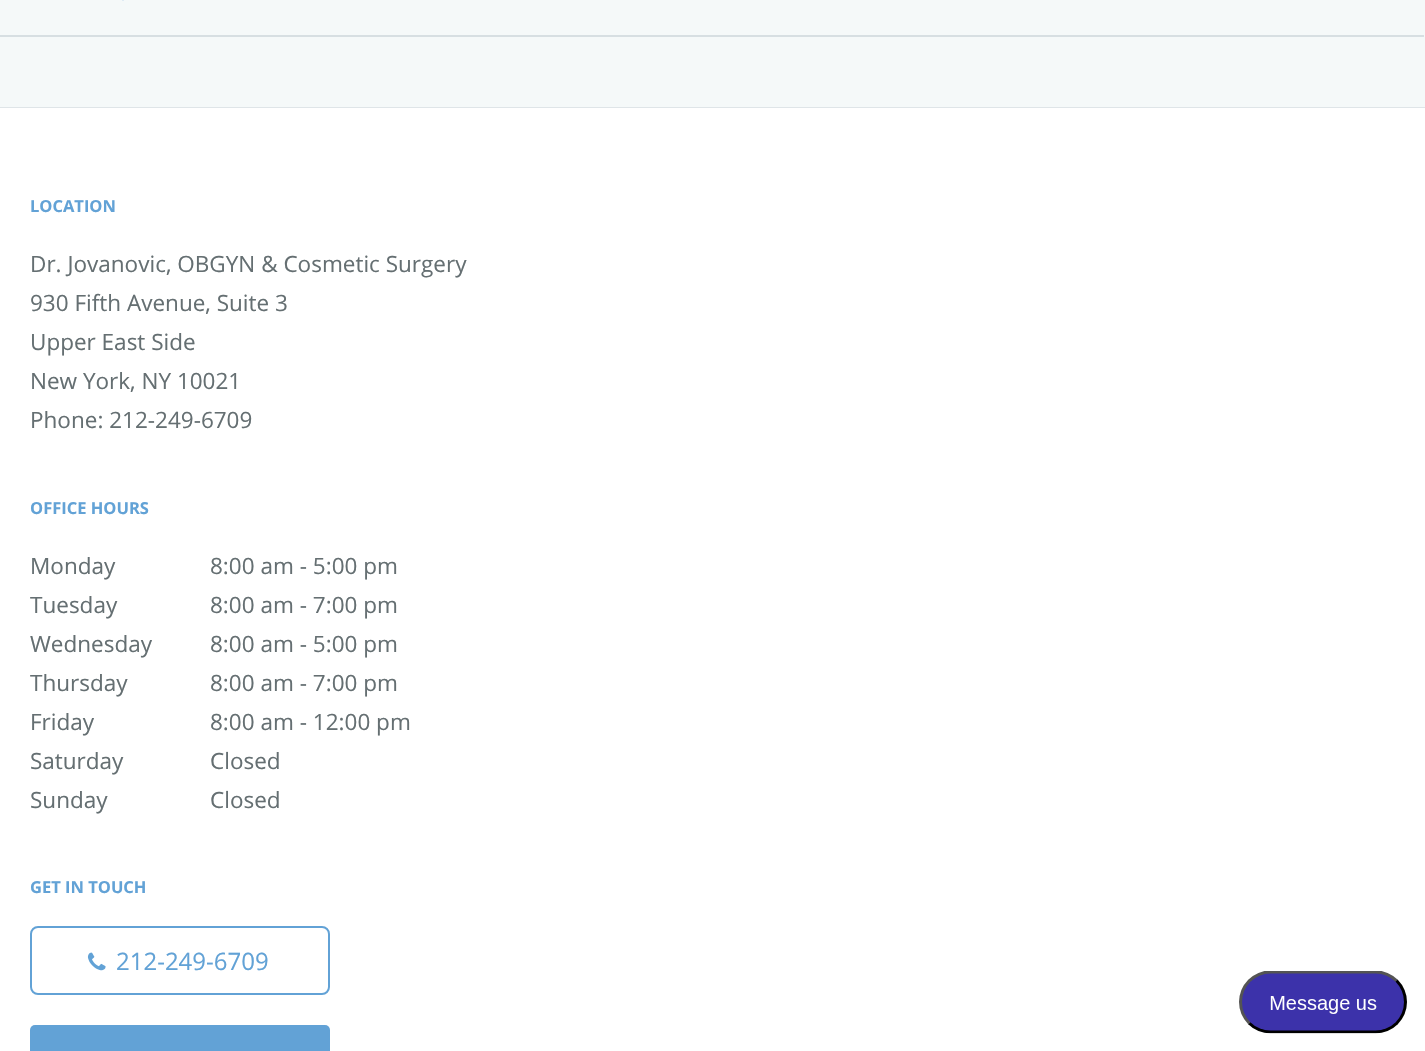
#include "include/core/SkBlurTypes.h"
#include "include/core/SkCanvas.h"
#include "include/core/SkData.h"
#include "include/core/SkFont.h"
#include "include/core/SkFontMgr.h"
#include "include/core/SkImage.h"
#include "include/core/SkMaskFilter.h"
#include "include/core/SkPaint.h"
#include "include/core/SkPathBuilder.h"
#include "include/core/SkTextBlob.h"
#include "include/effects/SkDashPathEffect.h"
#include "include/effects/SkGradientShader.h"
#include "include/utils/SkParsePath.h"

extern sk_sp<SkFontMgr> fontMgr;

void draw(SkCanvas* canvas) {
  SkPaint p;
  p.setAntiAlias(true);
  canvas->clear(SkColorSetRGB(245, 249, 249));
  p.setColor(SkColorSetRGB(223, 229, 232));
  canvas->drawRect(SkRect::MakeLTRB(0, 107, 1425, 108), p);
  p.setColor(SkColorSetRGB(215, 223, 226));
  canvas->drawRect(SkRect::MakeLTRB(0, 35, 1424, 37), p);
  p.setColor(SkColorSetRGB(223, 235, 244));
  canvas->drawRect(SkRect::MakeLTRB(122, 0, 124, 1), p);
  p.setColor(SK_ColorWHITE);
  canvas->drawRect(SkRect::MakeLTRB(0, 108, 1425, 1051), p);
  p.setStyle(SkPaint::kStroke_Style);
  p.setStrokeWidth(2);
  p.setColor(SkColorSetRGB(98, 162, 214));
  canvas->drawRoundRect(SkRect::MakeLTRB(31, 927, 329, 994), 7, 7, p);
  canvas->drawImageRect(SkImages::DeferredFromEncodedData(SkData::MakeFromFileName("images/1.png")), SkRect::MakeLTRB(87, 952, 106, 971), SkSamplingOptions());
  p.setStyle(SkPaint::kFill_Style);
  canvas->drawRoundRect(SkRect::MakeLTRB(30, 1025, 330, 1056), 5, 5, p);
  canvas->drawImageRect(SkImages::DeferredFromEncodedData(SkData::MakeFromFileName("images/2.png")), SkRect::MakeLTRB(1239, 971, 1407, 1034), SkSamplingOptions());
  SkFont font1(fontMgr->matchFamilyStyle("Open Sans", SkFontStyle::Bold()), 16.5f);
  font1.setSubpixel(true);
  canvas->drawString("LOCATION", 30, 212, font1, p);
  SkFont font2(fontMgr->matchFamilyStyle("Open Sans", SkFontStyle::Normal()), 22.5f);
  font2.setSubpixel(true);
  p.setColor(SkColorSetRGB(101, 111, 114));
  canvas->drawString("Dr. Jovanovic, OBGYN & Cosmetic Surgery", 30, 272, font2, p);
  canvas->drawString("930 Fifth Avenue, Suite 3", 30, 311, font2, p);
  canvas->drawString("Upper East Side", 30, 350, font2, p);
  canvas->drawString("New York, NY 10021", 30, 389, font2, p);
  canvas->drawString("Phone: 212-249-6709", 30, 428, font2, p);
  p.setColor(SkColorSetRGB(98, 162, 214));
  canvas->drawString("OFFICE HOURS", 30, 514, font1, p);
  p.setColor(SkColorSetRGB(101, 111, 114));
  canvas->drawString("Monday", 30, 574, font2, p);
  canvas->drawString("8:00 am - 5:00 pm", 210, 574, font2, p);
  canvas->drawString("Tuesday", 30, 613, font2, p);
  canvas->drawString("8:00 am - 7:00 pm", 210, 613, font2, p);
  canvas->drawString("Wednesday", 30, 652, font2, p);
  canvas->drawString("8:00 am - 5:00 pm", 210, 652, font2, p);
  canvas->drawString("Thursday", 30, 691, font2, p);
  canvas->drawString("8:00 am - 7:00 pm", 210, 691, font2, p);
  canvas->drawString("Friday", 30, 730, font2, p);
  canvas->drawString("8:00 am - 12:00 pm", 210, 730, font2, p);
  canvas->drawString("Saturday", 30, 769, font2, p);
  canvas->drawString("Closed", 210, 769, font2, p);
  canvas->drawString("Sunday", 30, 808, font2, p);
  canvas->drawString("Closed", 210, 808, font2, p);
  p.setColor(SkColorSetRGB(98, 162, 214));
  canvas->drawString("GET IN TOUCH", 30, 893, font1, p);
  SkFont font3(fontMgr->matchFamilyStyle("Open Sans", SkFontStyle::Normal()), 24);
  font3.setSubpixel(true);
  canvas->drawString("212-249-6709", 116, 970, font3, p);
}
